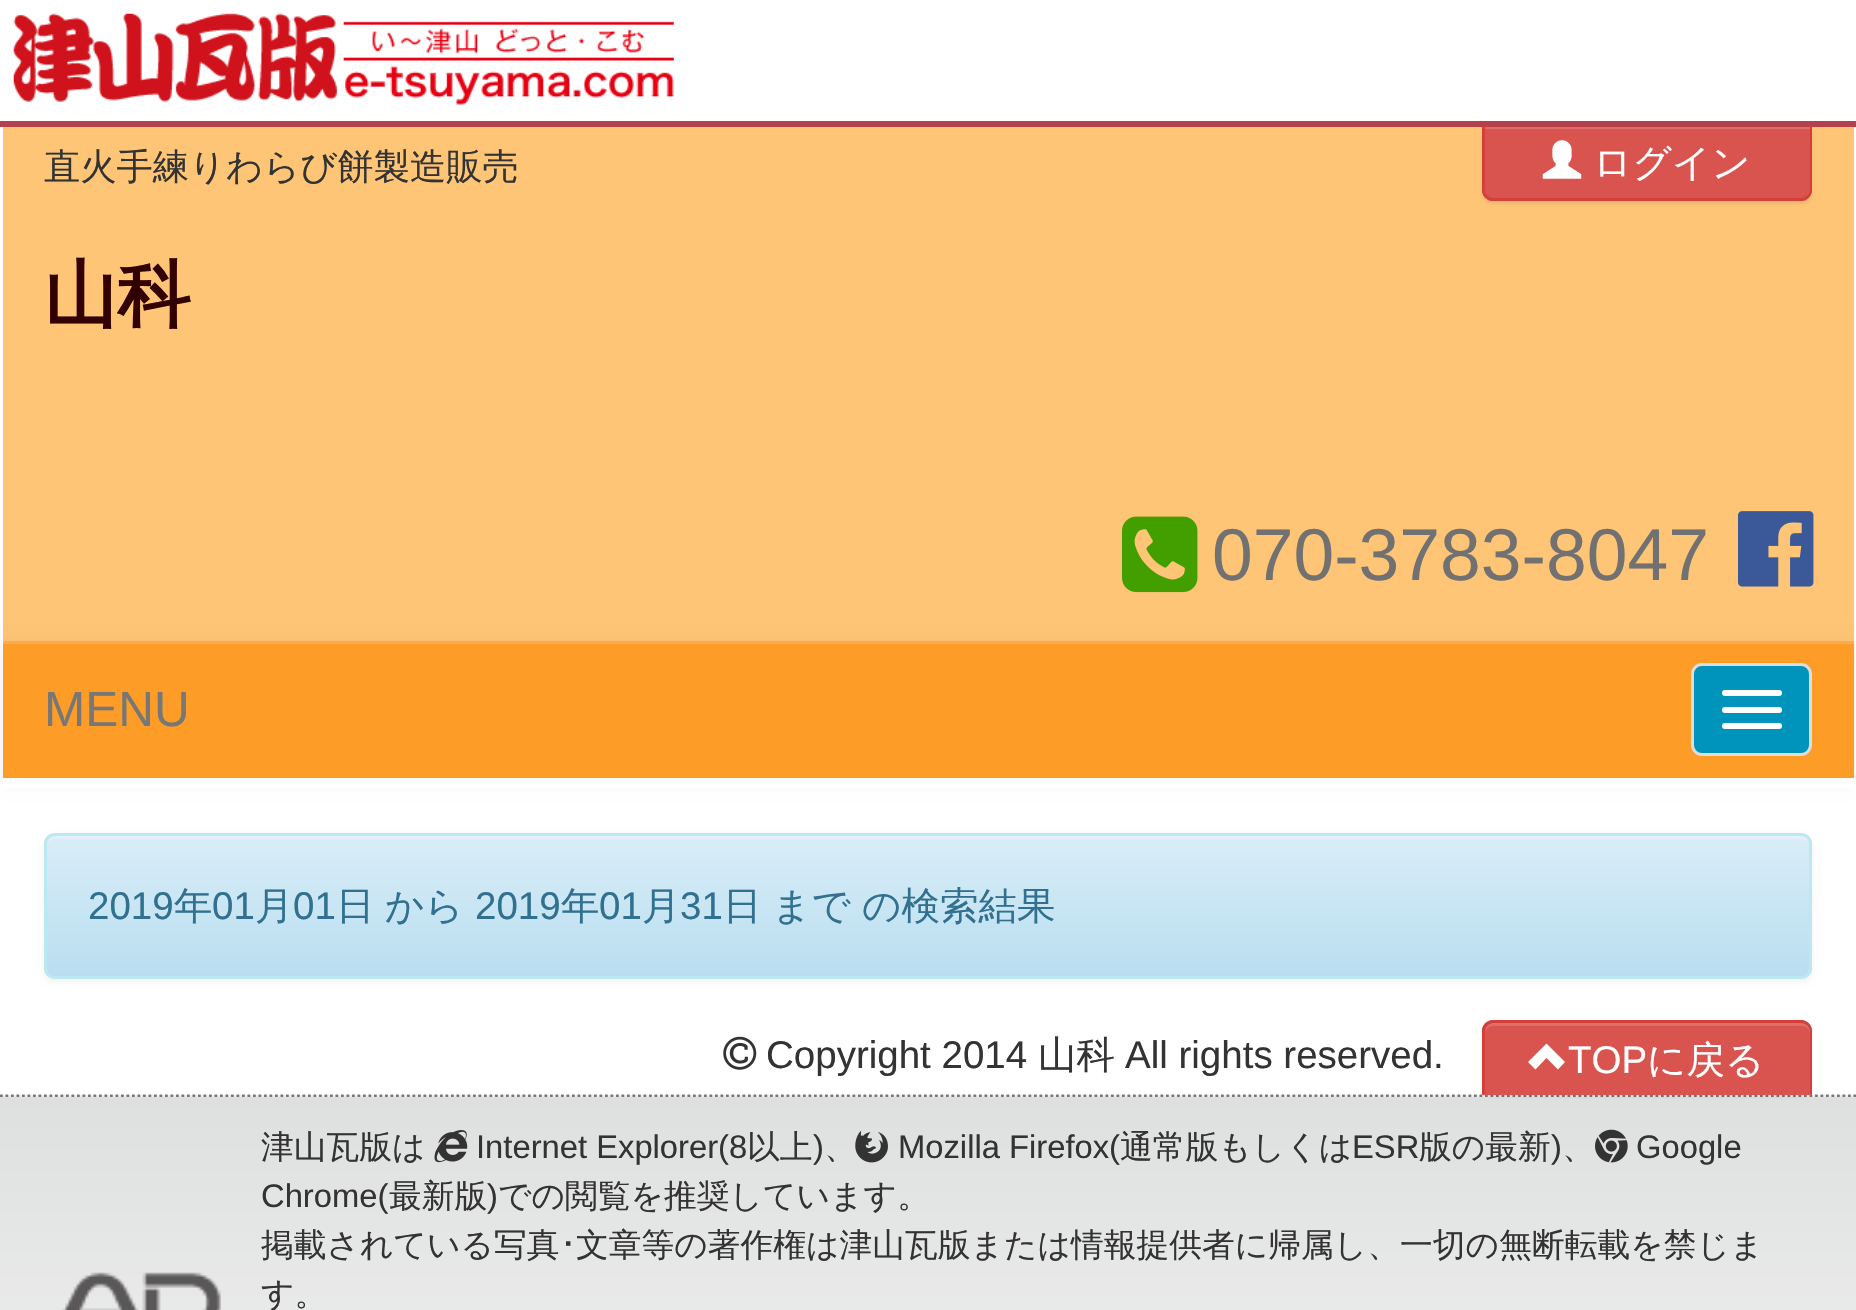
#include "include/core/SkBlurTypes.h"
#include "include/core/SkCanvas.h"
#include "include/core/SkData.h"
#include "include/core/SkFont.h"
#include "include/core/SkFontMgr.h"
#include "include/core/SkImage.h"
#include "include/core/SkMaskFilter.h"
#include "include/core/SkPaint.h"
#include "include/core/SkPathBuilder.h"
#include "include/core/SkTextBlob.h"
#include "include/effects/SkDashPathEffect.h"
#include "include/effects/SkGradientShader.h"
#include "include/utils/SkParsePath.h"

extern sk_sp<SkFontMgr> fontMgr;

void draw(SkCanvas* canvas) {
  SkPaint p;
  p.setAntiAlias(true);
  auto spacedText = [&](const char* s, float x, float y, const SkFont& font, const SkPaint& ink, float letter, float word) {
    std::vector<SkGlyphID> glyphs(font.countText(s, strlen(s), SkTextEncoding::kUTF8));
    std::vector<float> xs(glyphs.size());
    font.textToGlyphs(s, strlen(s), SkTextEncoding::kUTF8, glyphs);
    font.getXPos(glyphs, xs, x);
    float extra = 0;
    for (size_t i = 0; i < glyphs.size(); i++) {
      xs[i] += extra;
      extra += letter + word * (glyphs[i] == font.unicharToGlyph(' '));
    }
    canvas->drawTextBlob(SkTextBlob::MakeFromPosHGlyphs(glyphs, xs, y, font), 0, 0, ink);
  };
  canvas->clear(SK_ColorWHITE);
  p.setColor(SkColorSetRGB(181, 64, 75));
  canvas->drawRect(SkRect::MakeLTRB(0, 121, 1856, 127), p);
  canvas->drawImageRect(SkImages::DeferredFromEncodedData(SkData::MakeFromFileName("images/1.png")), SkRect::MakeLTRB(13, 13, 674, 105), SkSamplingOptions());
  p.setColor(SkColorSetRGB(254, 197, 118));
  canvas->drawRect(SkRect::MakeLTRB(3, 127, 1854, 641), p);
  p.setColor(SkColorSetARGB(18, 0, 0, 0));
  p.setMaskFilter(SkMaskFilter::MakeBlur(kNormal_SkBlurStyle, 1.5f));
  canvas->drawRoundRect(SkRect::MakeLTRB(1482, 129, 1812, 204), 11, 11, p);
  p.setMaskFilter(nullptr);
  p.setColor(SkColorSetRGB(217, 83, 79));
  canvas->drawPath(SkPathBuilder().moveTo(1482, 127).lineTo(1812, 127).lineTo(1812, 190).cubicTo(1812, 196, 1807, 201, 1801, 201).lineTo(1493, 201).cubicTo(1487, 201, 1482, 196, 1482, 190).close().detach(), p);
  p.setColor(SkColorSetRGB(223, 109, 105));
  canvas->drawRect(SkRect::MakeLTRB(1485, 127, 1810, 129), p);
  p.setColor(SkColorSetRGB(212, 63, 58));
  canvas->drawPath(SkPathBuilder(SkPathFillType::kEvenOdd).moveTo(1482, 126).lineTo(1812, 126).lineTo(1812, 190).cubicTo(1812, 196, 1807, 201, 1801, 201).lineTo(1493, 201).cubicTo(1487, 201, 1482, 196, 1482, 190).close().moveTo(1485, 126).lineTo(1810, 126).lineTo(1810, 190).cubicTo(1810, 194, 1806, 198, 1801, 198).lineTo(1493, 198).cubicTo(1489, 198, 1485, 194, 1485, 190).close().detach(), p);
  canvas->drawImageRect(SkImages::DeferredFromEncodedData(SkData::MakeFromFileName("images/2.png")), SkRect::MakeLTRB(1542, 140, 1582, 179), SkSamplingOptions());
  canvas->drawImageRect(SkImages::DeferredFromEncodedData(SkData::MakeFromFileName("images/3.png")), SkRect::MakeLTRB(1122, 516, 1198, 593), SkSamplingOptions());
  canvas->drawImageRect(SkImages::DeferredFromEncodedData(SkData::MakeFromFileName("images/4.png")), SkRect::MakeLTRB(1738, 511, 1814, 587), SkSamplingOptions());
  p.setColor(SkColorSetARGB(18, 0, 0, 0));
  p.setMaskFilter(SkMaskFilter::MakeBlur(kNormal_SkBlurStyle, 7));
  canvas->drawRect(SkRect::MakeLTRB(3, 644, 1854, 781), p);
  p.setMaskFilter(nullptr);
  p.setColor(SkColorSetRGB(253, 156, 38));
  canvas->drawRect(SkRect::MakeLTRB(3, 644, 1854, 778), p);
  p.setColor(SkColorSetRGB(253, 171, 71));
  canvas->drawRect(SkRect::MakeLTRB(3, 641, 1854, 644), p);
  p.setColor(SkColorSetRGB(0, 147, 187));
  canvas->drawRoundRect(SkRect::MakeLTRB(1692.5f, 664.5f, 1810.5f, 754.5f), 9.5f, 9.5f, p);
  p.setStyle(SkPaint::kStroke_Style);
  p.setStrokeWidth(3);
  p.setColor(SkColorSetRGB(221, 221, 221));
  canvas->drawRoundRect(SkRect::MakeLTRB(1692.5f, 664.5f, 1810.5f, 754.5f), 9.5f, 9.5f, p);
  p.setStyle(SkPaint::kFill_Style);
  p.setColor(SK_ColorWHITE);
  canvas->drawRoundRect(SkRect::MakeLTRB(1722, 690, 1782, 696), 3, 3, p);
  canvas->drawRoundRect(SkRect::MakeLTRB(1722, 707, 1782, 713), 3, 3, p);
  canvas->drawRoundRect(SkRect::MakeLTRB(1722, 723, 1782, 729), 3, 3, p);
  canvas->drawRect(SkRect::MakeLTRB(3, 778, 1854, 788), p);
  canvas->drawRect(SkRect::MakeLTRB(1854, 778, 1856, 785), p);
  canvas->drawRect(SkRect::MakeLTRB(0, 778, 3, 785), p);
  p.setColor(SkColorSetARGB(13, 0, 0, 0));
  p.setMaskFilter(SkMaskFilter::MakeBlur(kNormal_SkBlurStyle, 3));
  canvas->drawRoundRect(SkRect::MakeLTRB(44, 836, 1812, 982), 11, 11, p);
  p.setMaskFilter(nullptr);
  canvas->save();
  canvas->clipPath(SkPathBuilder().moveTo(55, 833).lineTo(1801, 833).cubicTo(1807, 833, 1812, 838, 1812, 844).lineTo(1812, 968).cubicTo(1812, 974, 1807, 979, 1801, 979).lineTo(55, 979).cubicTo(49, 979, 44, 974, 44, 968).lineTo(44, 844).cubicTo(44, 838, 49, 833, 55, 833).close().detach(), true);
  {
    const SkColor colors[] = {SkColorSetRGB(217, 237, 247), SkColorSetRGB(185, 222, 240)};
    const float stops[] = {0, 1};
    const SkPoint ends[] = {{928, 836}, {928, 976}};
    p.setShader(SkGradientShader::MakeLinear(ends, colors, stops, 2, SkTileMode::kClamp));
    p.setAlpha(255);
  }
  canvas->drawRect(SkRect::MakeLTRB(44, 836, 1812, 976), p);
  canvas->restore();
  p.setShader(nullptr);
  p.setColor(SkColorSetRGB(226, 241, 249));
  canvas->drawPath(SkPathBuilder().moveTo(55, 839).lineTo(1801, 839).cubicTo(1806, 839, 1810, 842, 1810, 847).lineTo(1810, 844).cubicTo(1810, 840, 1806, 836, 1802, 836).lineTo(55, 836).cubicTo(51, 836, 47, 840, 47, 844).lineTo(47, 847).cubicTo(47, 842, 50, 839, 55, 839).close().detach(), p);
  p.setStyle(SkPaint::kStroke_Style);
  p.setColor(SkColorSetRGB(188, 232, 241));
  canvas->drawRoundRect(SkRect::MakeLTRB(45.5f, 834.5f, 1810.5f, 977.5f), 9.5f, 9.5f, p);
  canvas->drawImageRect(SkImages::DeferredFromEncodedData(SkData::MakeFromFileName("images/5.png")), SkRect::MakeLTRB(723, 1036, 757, 1070), SkSamplingOptions());
  p.setStyle(SkPaint::kFill_Style);
  p.setColor(SkColorSetRGB(238, 238, 238));
  canvas->drawRect(SkRect::MakeLTRB(2, 1095, 1854, 1097), p);
  p.setStyle(SkPaint::kStroke_Style);
  p.setStrokeWidth(2.8f);
  p.setColor(SkColorSetRGB(119, 119, 119));
  p.setPathEffect(SkDashPathEffect::Make({{2.75f, 2.75f}}, 0));
  canvas->drawPath(SkPathBuilder().moveTo(0, 1096).lineTo(1856, 1096).detach(), p);
  p.setPathEffect(nullptr);
  p.setStyle(SkPaint::kFill_Style);
  {
    const SkColor colors[] = {SkColorSetRGB(222, 223, 223), SkColorSetRGB(238, 238, 239)};
    const float stops[] = {0, 0.7f};
    const SkPoint ends[] = {{928, 1097}, {928, 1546}};
    p.setShader(SkGradientShader::MakeLinear(ends, colors, stops, 2, SkTileMode::kClamp));
    p.setAlpha(255);
  }
  canvas->drawRect(SkRect::MakeLTRB(0, 1097, 1856, 1310), p);
  p.setShader(nullptr);
  p.setColor(SkColorSetARGB(18, 0, 0, 0));
  p.setMaskFilter(SkMaskFilter::MakeBlur(kNormal_SkBlurStyle, 1.5f));
  canvas->drawRoundRect(SkRect::MakeLTRB(1482, 1023, 1812, 1097), 11, 11, p);
  p.setMaskFilter(nullptr);
  p.setColor(SkColorSetRGB(217, 83, 79));
  canvas->drawPath(SkPathBuilder().moveTo(1493, 1020).lineTo(1801, 1020).cubicTo(1807, 1020, 1812, 1025, 1812, 1031).lineTo(1812, 1095).lineTo(1482, 1095).lineTo(1482, 1031).cubicTo(1482, 1025, 1487, 1020, 1493, 1020).close().detach(), p);
  p.setColor(SkColorSetRGB(223, 109, 105));
  canvas->drawPath(SkPathBuilder().moveTo(1493, 1026).lineTo(1801, 1026).cubicTo(1806, 1026, 1810, 1029, 1810, 1034).lineTo(1810, 1031).cubicTo(1810, 1027, 1806, 1023, 1802, 1023).lineTo(1493, 1023).cubicTo(1489, 1023, 1485, 1027, 1485, 1031).lineTo(1485, 1034).cubicTo(1485, 1029, 1489, 1026, 1493, 1026).close().detach(), p);
  p.setColor(SkColorSetRGB(212, 63, 58));
  canvas->drawPath(SkPathBuilder(SkPathFillType::kEvenOdd).moveTo(1493, 1020).lineTo(1801, 1020).cubicTo(1807, 1020, 1812, 1025, 1812, 1031).lineTo(1812, 1094).lineTo(1482, 1094).lineTo(1482, 1031).cubicTo(1482, 1025, 1487, 1020, 1493, 1020).close().moveTo(1493, 1023).lineTo(1801, 1023).cubicTo(1806, 1023, 1810, 1027, 1810, 1031).lineTo(1810, 1094).lineTo(1485, 1094).lineTo(1485, 1031).cubicTo(1485, 1027, 1489, 1023, 1493, 1023).close().detach(), p);
  p.setColor(SK_ColorWHITE);
  canvas->drawPath(SkPathBuilder().moveTo(1558, 1069.5f).lineTo(1565, 1062).lineTo(1546.5f, 1043.5f).lineTo(1528, 1062).lineTo(1535.5f, 1069.5f).lineTo(1546.5f, 1058).close().detach(), p);
  canvas->drawImageRect(SkImages::DeferredFromEncodedData(SkData::MakeFromFileName("images/6.png")), SkRect::MakeLTRB(62, 1272, 221, 1310), SkSamplingOptions());
  canvas->drawImageRect(SkImages::DeferredFromEncodedData(SkData::MakeFromFileName("images/7.png")), SkRect::MakeLTRB(434, 1130, 468, 1163), SkSamplingOptions());
  canvas->drawImageRect(SkImages::DeferredFromEncodedData(SkData::MakeFromFileName("images/8.png")), SkRect::MakeLTRB(855, 1130, 888, 1163), SkSamplingOptions());
  canvas->drawImageRect(SkImages::DeferredFromEncodedData(SkData::MakeFromFileName("images/9.png")), SkRect::MakeLTRB(1595, 1129, 1628, 1163), SkSamplingOptions());
  SkFont font1(fontMgr->matchFamilyStyle("WenQuanYi Zen Hei", SkFontStyle(500, SkFontStyle::kNormal_Width, SkFontStyle::kUpright_Slant)), 36.25f);
  font1.setSubpixel(true);
  p.setColor(SkColorSetRGB(51, 51, 51));
  canvas->drawString("直火手練りわらび餅製造販売", 44, 179, font1, p);
  SkFont font2(fontMgr->matchFamilyStyle("WenQuanYi Zen Hei", SkFontStyle(500, SkFontStyle::kNormal_Width, SkFontStyle::kUpright_Slant)), 38.5f);
  font2.setSubpixel(true);
  p.setColor(SK_ColorWHITE);
  canvas->drawString("ログイン", 1593, 176, font2, p);
  SkFont font3(fontMgr->matchFamilyStyle("WenQuanYi Zen Hei", SkFontStyle::Bold()), 73.25f);
  font3.setSubpixel(true);
  p.setColor(SkColorSetRGB(51, 0, 0));
  canvas->drawString("山科", 44, 320, font3, p);
  SkFont font4(fontMgr->matchFamilyStyle("Liberation Sans", SkFontStyle::Normal()), 73.25f);
  font4.setSubpixel(true);
  p.setColor(SkColorSetRGB(114, 113, 113));
  canvas->drawString("070-3783-8047", 1212, 580, font4, p);
  SkFont font5(fontMgr->matchFamilyStyle("Liberation Sans", SkFontStyle::Normal()), 49.5f);
  font5.setSubpixel(true);
  p.setColor(SkColorSetRGB(119, 119, 119));
  canvas->drawString("MENU", 44, 726, font5, p);
  SkFont font6(fontMgr->matchFamilyStyle("Liberation Sans", SkFontStyle::Normal()), 38.5f);
  font6.setSubpixel(true);
  p.setColor(SkColorSetRGB(49, 112, 143));
  canvas->drawString("2019", 88, 919, font6, p);
  canvas->drawString("年", 174, 919, font2, p);
  canvas->drawString("01", 212, 919, font6, p);
  canvas->drawString("月", 255, 919, font2, p);
  canvas->drawString("01", 293, 919, font6, p);
  spacedText("日 から", 336, 919, font2, p, 0, -1);
  canvas->drawString("2019", 475, 919, font6, p);
  canvas->drawString("年", 561, 919, font2, p);
  canvas->drawString("01", 599, 919, font6, p);
  canvas->drawString("月", 642, 919, font2, p);
  canvas->drawString("31", 680, 919, font6, p);
  spacedText("日 まで", 723, 919, font2, p, 0, -1);
  canvas->drawString("の検索結果", 862, 919, font2, p);
  p.setColor(SkColorSetRGB(51, 51, 51));
  canvas->drawString("Copyright 2014", 766, 1068, font6, p);
  canvas->drawString("山科", 1038, 1068, font2, p);
  canvas->drawString("All rights reserved.", 1125, 1068, font6, p);
  p.setColor(SK_ColorWHITE);
  canvas->drawString("TOP", 1568, 1073, font6, p);
  canvas->drawString("に戻る", 1647, 1073, font2, p);
  SkFont font7(fontMgr->matchFamilyStyle("WenQuanYi Zen Hei", SkFontStyle(500, SkFontStyle::kNormal_Width, SkFontStyle::kUpright_Slant)), 32.75f);
  font7.setSubpixel(true);
  p.setColor(SkColorSetRGB(51, 51, 51));
  canvas->drawString("津山瓦版は", 261, 1158, font7, p);
  SkFont font8(fontMgr->matchFamilyStyle("Liberation Sans", SkFontStyle::Normal()), 32.75f);
  font8.setSubpixel(true);
  canvas->drawString("Internet Explorer(8", 476, 1158, font8, p);
  canvas->drawString("以上", 747, 1158, font7, p);
  canvas->drawString(")", 813, 1158, font8, p);
  canvas->drawString("、", 824, 1158, font7, p);
  canvas->drawString("Mozilla Firefox(", 898, 1158, font8, p);
  canvas->drawString("通常版もしくは", 1120, 1158, font7, p);
  canvas->drawString("ESR", 1352, 1158, font8, p);
  canvas->drawString("版の最新", 1419, 1158, font7, p);
  canvas->drawString(")", 1551, 1158, font8, p);
  canvas->drawString("、", 1562, 1158, font7, p);
  canvas->drawString("Google", 1636, 1158, font8, p);
  canvas->drawString("Chrome(", 261, 1207, font8, p);
  canvas->drawString("最新版", 389, 1207, font7, p);
  canvas->drawString(")", 487, 1207, font8, p);
  canvas->drawString("での閲覧を推奨しています。", 498, 1207, font7, p);
  canvas->drawString("掲載されている写真", 261, 1256, font7, p);
  SkFont font9(fontMgr->matchFamilyStyle("IPAPGothic", SkFontStyle::Normal()), 32.75f);
  font9.setSubpixel(true);
  canvas->drawString("･", 560, 1256, font9, p);
  canvas->drawString("文章等の著作権は津山瓦版または情報提供者に帰属し、一切の無断転載を禁じま", 576, 1256, font7, p);
  canvas->drawString("す。", 261, 1305, font7, p);
}
